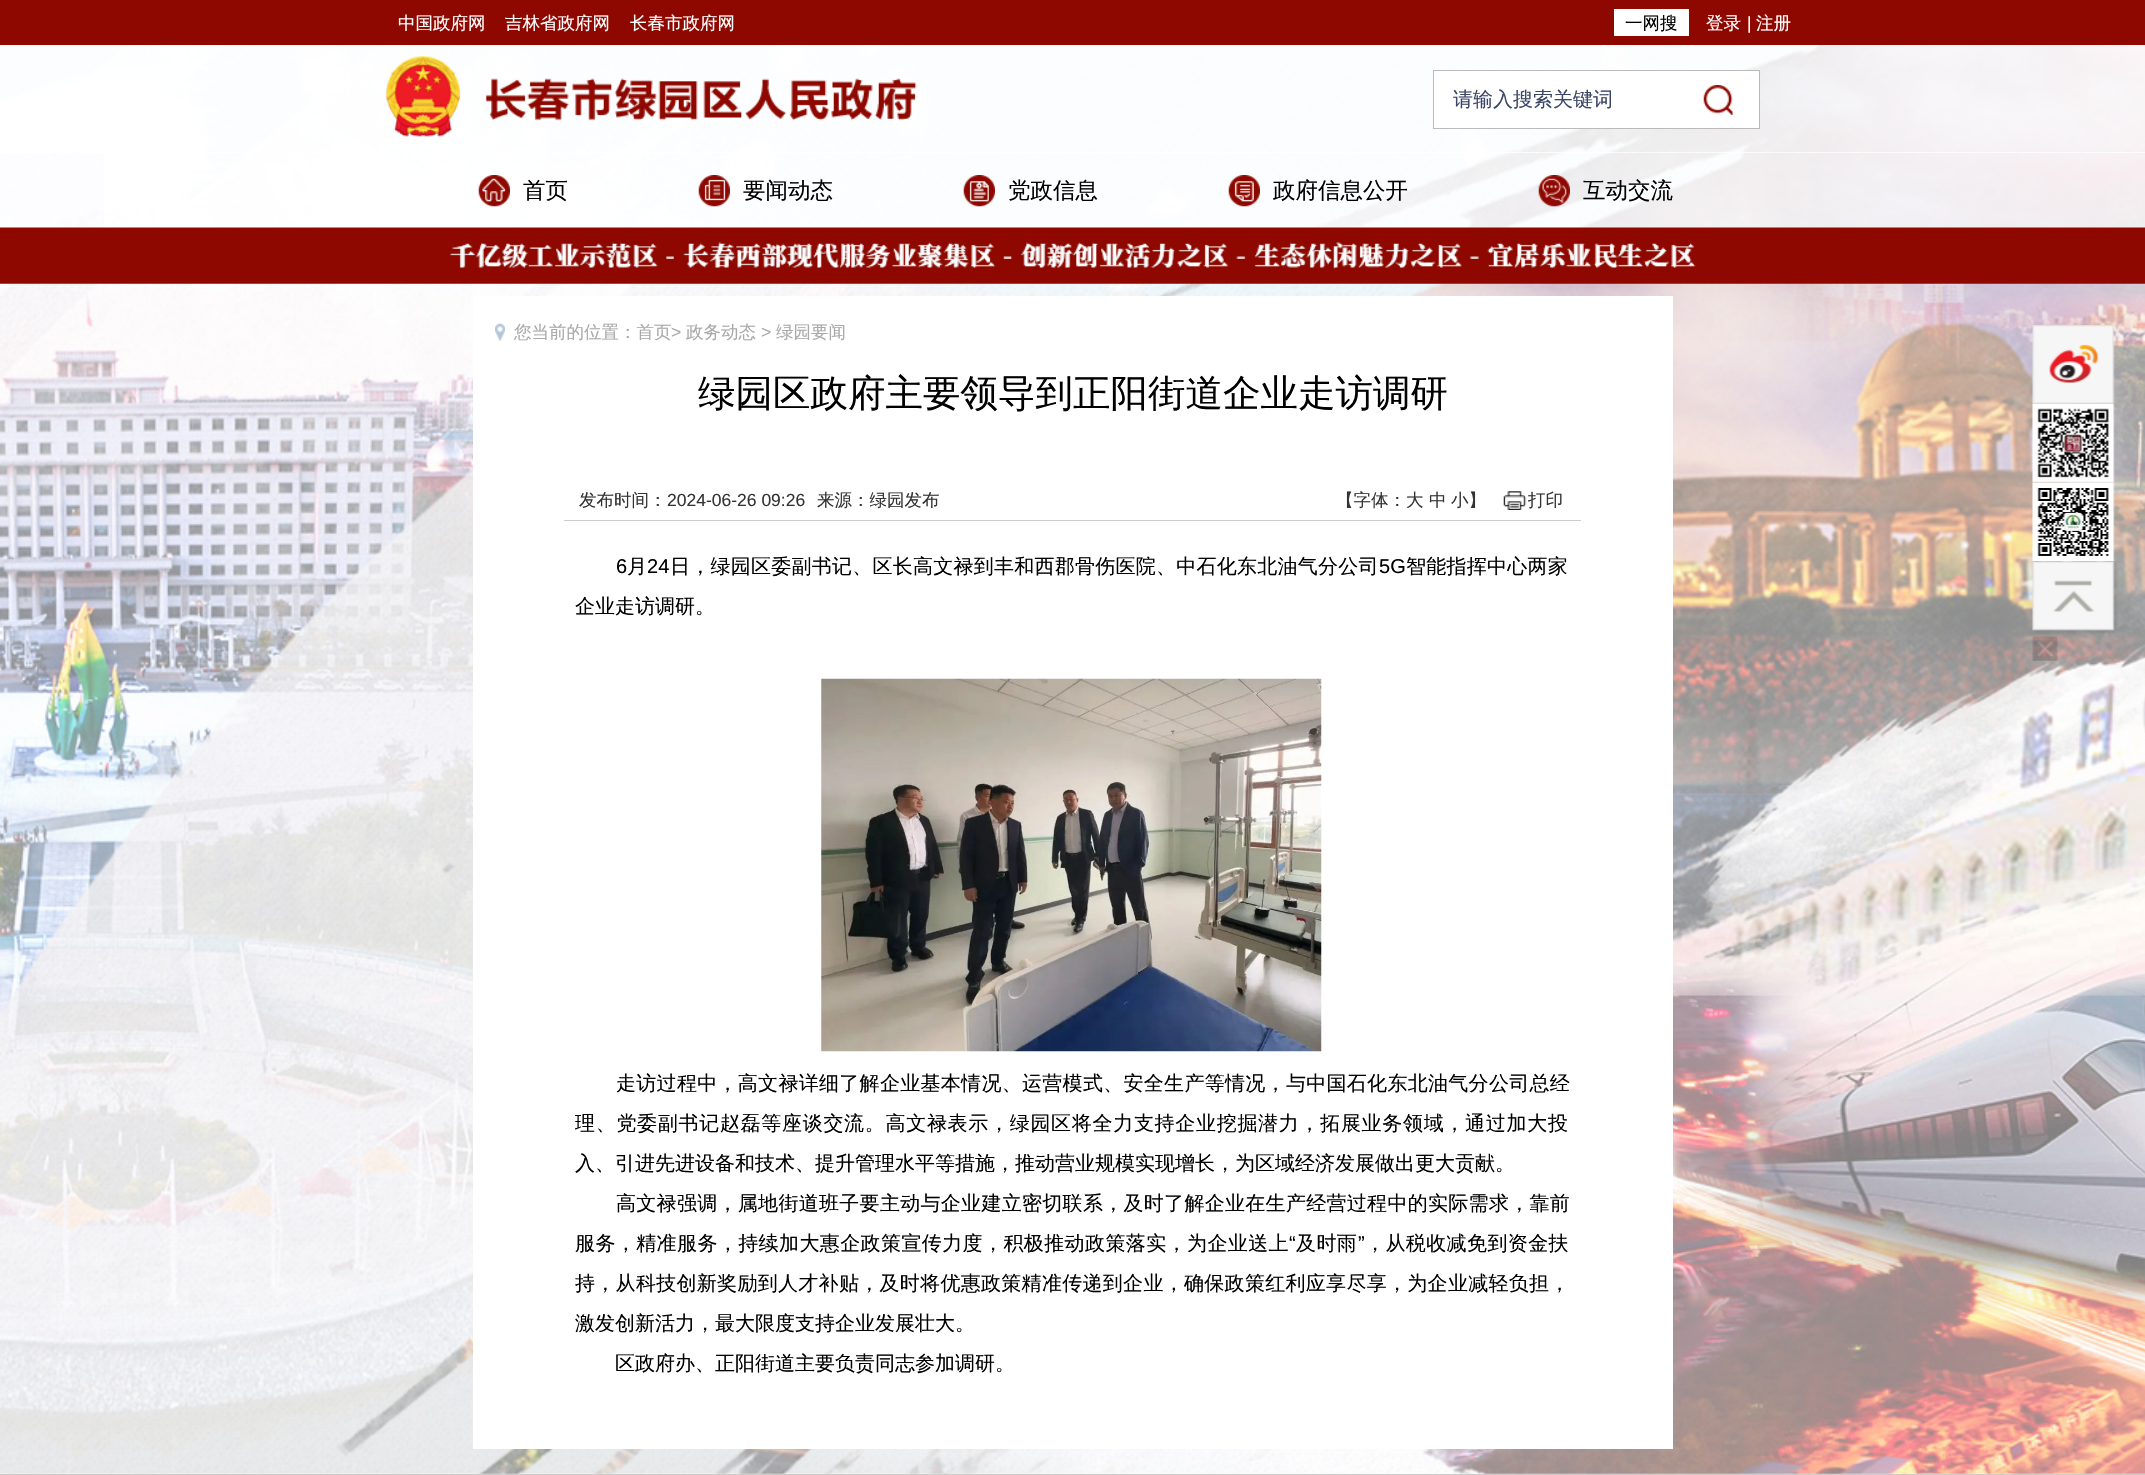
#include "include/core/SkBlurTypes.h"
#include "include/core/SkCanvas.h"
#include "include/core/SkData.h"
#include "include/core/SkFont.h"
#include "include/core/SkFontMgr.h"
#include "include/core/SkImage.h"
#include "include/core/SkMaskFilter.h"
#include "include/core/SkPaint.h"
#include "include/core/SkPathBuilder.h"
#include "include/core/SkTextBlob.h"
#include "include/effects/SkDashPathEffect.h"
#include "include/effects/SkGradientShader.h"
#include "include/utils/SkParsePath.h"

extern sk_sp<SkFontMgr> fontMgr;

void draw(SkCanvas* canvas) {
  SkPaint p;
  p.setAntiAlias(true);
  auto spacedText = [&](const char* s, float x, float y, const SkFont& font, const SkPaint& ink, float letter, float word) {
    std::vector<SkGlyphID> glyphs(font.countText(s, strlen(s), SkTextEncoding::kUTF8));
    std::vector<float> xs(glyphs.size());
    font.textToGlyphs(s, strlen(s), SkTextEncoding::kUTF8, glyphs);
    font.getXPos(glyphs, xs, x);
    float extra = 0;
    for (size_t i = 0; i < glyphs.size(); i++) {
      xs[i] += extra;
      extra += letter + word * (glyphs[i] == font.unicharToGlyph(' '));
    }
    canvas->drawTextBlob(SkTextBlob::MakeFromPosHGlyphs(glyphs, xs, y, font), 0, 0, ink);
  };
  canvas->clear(SK_ColorWHITE);
  canvas->drawImageRect(SkImages::DeferredFromEncodedData(SkData::MakeFromFileName("images/1.png")), SkRect::MakeLTRB(0, 45, 2145, 1474), SkSamplingOptions());
  p.setColor(SkColorSetRGB(142, 8, 0));
  canvas->drawRect(SkRect::MakeLTRB(0, 0, 2145, 45), p);
  p.setColor(SK_ColorWHITE);
  canvas->drawRect(SkRect::MakeLTRB(1614, 9, 1689, 36), p);
  p.setColor(SkColorSetARGB(194, 255, 255, 255));
  canvas->drawRect(SkRect::MakeLTRB(0, 45, 2145, 153), p);
  canvas->drawImageRect(SkImages::DeferredFromEncodedData(SkData::MakeFromFileName("images/2.png")), SkRect::MakeLTRB(386, 56, 917, 137), SkSamplingOptions());
  p.setColor(SK_ColorWHITE);
  canvas->drawRect(SkRect::MakeLTRB(1433.5f, 70.5f, 1759.5f, 128.5f), p);
  p.setStyle(SkPaint::kStroke_Style);
  p.setStrokeWidth(1);
  p.setColor(SkColorSetRGB(186, 186, 186));
  canvas->drawRect(SkRect::MakeLTRB(1433.5f, 70.5f, 1759.5f, 128.5f), p);
  canvas->drawImageRect(SkImages::DeferredFromEncodedData(SkData::MakeFromFileName("images/3.png")), SkRect::MakeLTRB(1703, 85, 1733, 115), SkSamplingOptions());
  p.setStyle(SkPaint::kFill_Style);
  p.setColor(SkColorSetARGB(194, 255, 255, 255));
  canvas->drawRect(SkRect::MakeLTRB(104, 152, 2145, 228), p);
  canvas->drawImageRect(SkImages::DeferredFromEncodedData(SkData::MakeFromFileName("images/4.png")), SkRect::MakeLTRB(478, 175, 510, 207), SkSamplingOptions());
  canvas->drawImageRect(SkImages::DeferredFromEncodedData(SkData::MakeFromFileName("images/5.png")), SkRect::MakeLTRB(698, 175, 730, 207), SkSamplingOptions());
  canvas->drawImageRect(SkImages::DeferredFromEncodedData(SkData::MakeFromFileName("images/6.png")), SkRect::MakeLTRB(963, 175, 995, 207), SkSamplingOptions());
  canvas->drawImageRect(SkImages::DeferredFromEncodedData(SkData::MakeFromFileName("images/7.png")), SkRect::MakeLTRB(1228, 175, 1260, 207), SkSamplingOptions());
  canvas->drawImageRect(SkImages::DeferredFromEncodedData(SkData::MakeFromFileName("images/8.png")), SkRect::MakeLTRB(1538, 175, 1570, 207), SkSamplingOptions());
  canvas->drawImageRect(SkImages::DeferredFromEncodedData(SkData::MakeFromFileName("images/9.png")), SkRect::MakeLTRB(0, 227, 2145, 284), SkSamplingOptions());
  p.setColor(SK_ColorWHITE);
  canvas->drawRect(SkRect::MakeLTRB(473, 296, 1673, 1449), p);
  canvas->drawImageRect(SkImages::DeferredFromEncodedData(SkData::MakeFromFileName("images/10.png")), SkRect::MakeLTRB(495, 323, 505, 342), SkSamplingOptions());
  p.setColor(SkColorSetRGB(204, 204, 204));
  canvas->drawRect(SkRect::MakeLTRB(564, 520, 1581, 521), p);
  canvas->drawImageRect(SkImages::DeferredFromEncodedData(SkData::MakeFromFileName("images/11.png")), SkRect::MakeLTRB(1503, 491, 1527, 510), SkSamplingOptions());
  canvas->drawImageRect(SkImages::DeferredFromEncodedData(SkData::MakeFromFileName("images/12.png")), SkRect::MakeLTRB(821, 678, 1322, 1052), SkSamplingOptions());
  canvas->drawImageRect(SkImages::DeferredFromEncodedData(SkData::MakeFromFileName("images/13.png")), SkRect::MakeLTRB(2032, 325, 2115, 404), SkSamplingOptions());
  canvas->drawImageRect(SkImages::DeferredFromEncodedData(SkData::MakeFromFileName("images/14.png")), SkRect::MakeLTRB(2032, 403, 2115, 483), SkSamplingOptions());
  canvas->drawImageRect(SkImages::DeferredFromEncodedData(SkData::MakeFromFileName("images/15.png")), SkRect::MakeLTRB(2032, 482, 2115, 562), SkSamplingOptions());
  canvas->drawImageRect(SkImages::DeferredFromEncodedData(SkData::MakeFromFileName("images/16.png")), SkRect::MakeLTRB(2032, 561, 2118, 634), SkSamplingOptions());
  canvas->drawImageRect(SkImages::DeferredFromEncodedData(SkData::MakeFromFileName("images/17.png")), SkRect::MakeLTRB(2032, 636, 2058, 661), SkSamplingOptions());
  canvas->drawImageRect(SkImages::DeferredFromEncodedData(SkData::MakeFromFileName("images/18.png")), SkRect::MakeLTRB(0, 1473, 2145, 1474), SkSamplingOptions());
  canvas->drawRect(SkRect::MakeLTRB(0, 1474, 2145, 1475), p);
  SkFont font1(fontMgr->matchFamilyStyle("WenQuanYi Zen Hei", SkFontStyle(500, SkFontStyle::kNormal_Width, SkFontStyle::kUpright_Slant)), 17.5f);
  font1.setSubpixel(true);
  p.setColor(SK_ColorWHITE);
  canvas->drawString("中国政府网", 398, 29, font1, p);
  canvas->drawString("吉林省政府网", 505, 29, font1, p);
  canvas->drawString("长春市政府网", 630, 29, font1, p);
  p.setColor(SK_ColorBLACK);
  canvas->drawString("一网搜", 1625, 29, font1, p);
  p.setColor(SK_ColorWHITE);
  canvas->drawString("登录", 1706, 29, font1, p);
  SkFont font2(fontMgr->matchFamilyStyle("Liberation Sans", SkFontStyle::Normal()), 17.5f);
  font2.setSubpixel(true);
  canvas->drawString("|", 1747, 29, font2, p);
  canvas->drawString("注册", 1756, 29, font1, p);
  SkFont font3(fontMgr->matchFamilyStyle("WenQuanYi Zen Hei", SkFontStyle(500, SkFontStyle::kNormal_Width, SkFontStyle::kUpright_Slant)), 20);
  font3.setSubpixel(true);
  p.setColor(SkColorSetRGB(59, 69, 103));
  canvas->drawString("请输入搜索关键词", 1453, 106, font3, p);
  SkFont font4(fontMgr->matchFamilyStyle("WenQuanYi Zen Hei", SkFontStyle(500, SkFontStyle::kNormal_Width, SkFontStyle::kUpright_Slant)), 22.5f);
  font4.setSubpixel(true);
  p.setColor(SK_ColorBLACK);
  canvas->drawString("首页", 523, 198, font4, p);
  canvas->drawString("要闻动态", 743, 198, font4, p);
  canvas->drawString("党政信息", 1008, 198, font4, p);
  canvas->drawString("政府信息公开", 1273, 198, font4, p);
  canvas->drawString("互动交流", 1583, 198, font4, p);
  p.setColor(SkColorSetRGB(169, 169, 169));
  canvas->drawString("您当前的位置：首页", 514, 338, font1, p);
  canvas->drawString(">", 671, 338, font2, p);
  canvas->drawString("政务动态", 686, 338, font1, p);
  canvas->drawString(">", 761, 338, font2, p);
  canvas->drawString("绿园要闻", 776, 338, font1, p);
  SkFont font5(fontMgr->matchFamilyStyle("WenQuanYi Zen Hei", SkFontStyle(500, SkFontStyle::kNormal_Width, SkFontStyle::kUpright_Slant)), 37.5f);
  font5.setSubpixel(true);
  p.setColor(SK_ColorBLACK);
  canvas->drawString("绿园区政府主要领导到正阳街道企业走访调研", 698, 406, font5, p);
  p.setColor(SkColorSetRGB(51, 51, 51));
  canvas->drawString("发布时间：", 579, 506, font1, p);
  canvas->drawString("2024-06-26 09:26", 667, 506, font2, p);
  canvas->drawString("来源：绿园发布", 817, 506, font1, p);
  canvas->drawString("【字体：大", 1336, 506, font1, p);
  canvas->drawString("中", 1429, 506, font1, p);
  canvas->drawString("小】", 1451, 506, font1, p);
  canvas->drawString("打印", 1528, 506, font1, p);
  SkFont font6(fontMgr->matchFamilyStyle("Liberation Sans", SkFontStyle::Normal()), 20);
  font6.setSubpixel(true);
  p.setColor(SK_ColorBLACK);
  spacedText("6", 616, 573, font6, p, 0.25f, 0);
  spacedText("月", 627, 573, font3, p, 0.25f, 0);
  spacedText("24", 647, 573, font6, p, 0.25f, 0);
  spacedText("日，绿园区委副书记、区长高文禄到丰和西郡骨伤医院、中石化东北油气分公司", 670, 573, font3, p, 0.25f, 0);
  spacedText("5G", 1379, 573, font6, p, 0.25f, 0);
  spacedText("智能指挥中心两家", 1406, 573, font3, p, 0.25f, 0);
  canvas->drawString("企业走访调研。", 575, 613, font3, p);
  spacedText("走访过程中，高文禄详细了解企业基本情况、运营模式、安全生产等情况，与中国石化东北油气分公司总经", 616, 1090, font3, p, 0.3f, 0);
  spacedText("理、党委副书记赵磊等座谈交流。高文禄表示，绿园区将全力支持企业挖掘潜力，拓展业务领域，通过加大投", 575, 1130, font3, p, 0.7f, 0);
  canvas->drawString("入、引进先进设备和技术、提升管理水平等措施，推动营业规模实现增长，为区域经济发展做出更大贡献。", 575, 1170, font3, p);
  spacedText("高文禄强调，属地街道班子要主动与企业建立密切联系，及时了解企业在生产经营过程中的实际需求，靠前", 616, 1210, font3, p, 0.3f, 0);
  spacedText("服务，精准服务，持续加大惠企政策宣传力度，积极推动政策落实，为企业送上", 575, 1250, font3, p, 0.4f, 0);
  spacedText("“", 1289, 1250, font6, p, 0.4f, 0);
  spacedText("及时雨", 1296, 1250, font3, p, 0.4f, 0);
  spacedText("”", 1358, 1250, font6, p, 0.4f, 0);
  spacedText("，从税收减免到资金扶", 1365, 1250, font3, p, 0.4f, 0);
  spacedText("持，从科技创新奖励到人才补贴，及时将优惠政策精准传递到企业，确保政策红利应享尽享，为企业减轻负担，", 575, 1290, font3, p, 0.3f, 0);
  canvas->drawString("激发创新活力，最大限度支持企业发展壮大。", 575, 1330, font3, p);
  canvas->drawString("区政府办、正阳街道主要负责同志参加调研。", 615, 1370, font3, p);
}
